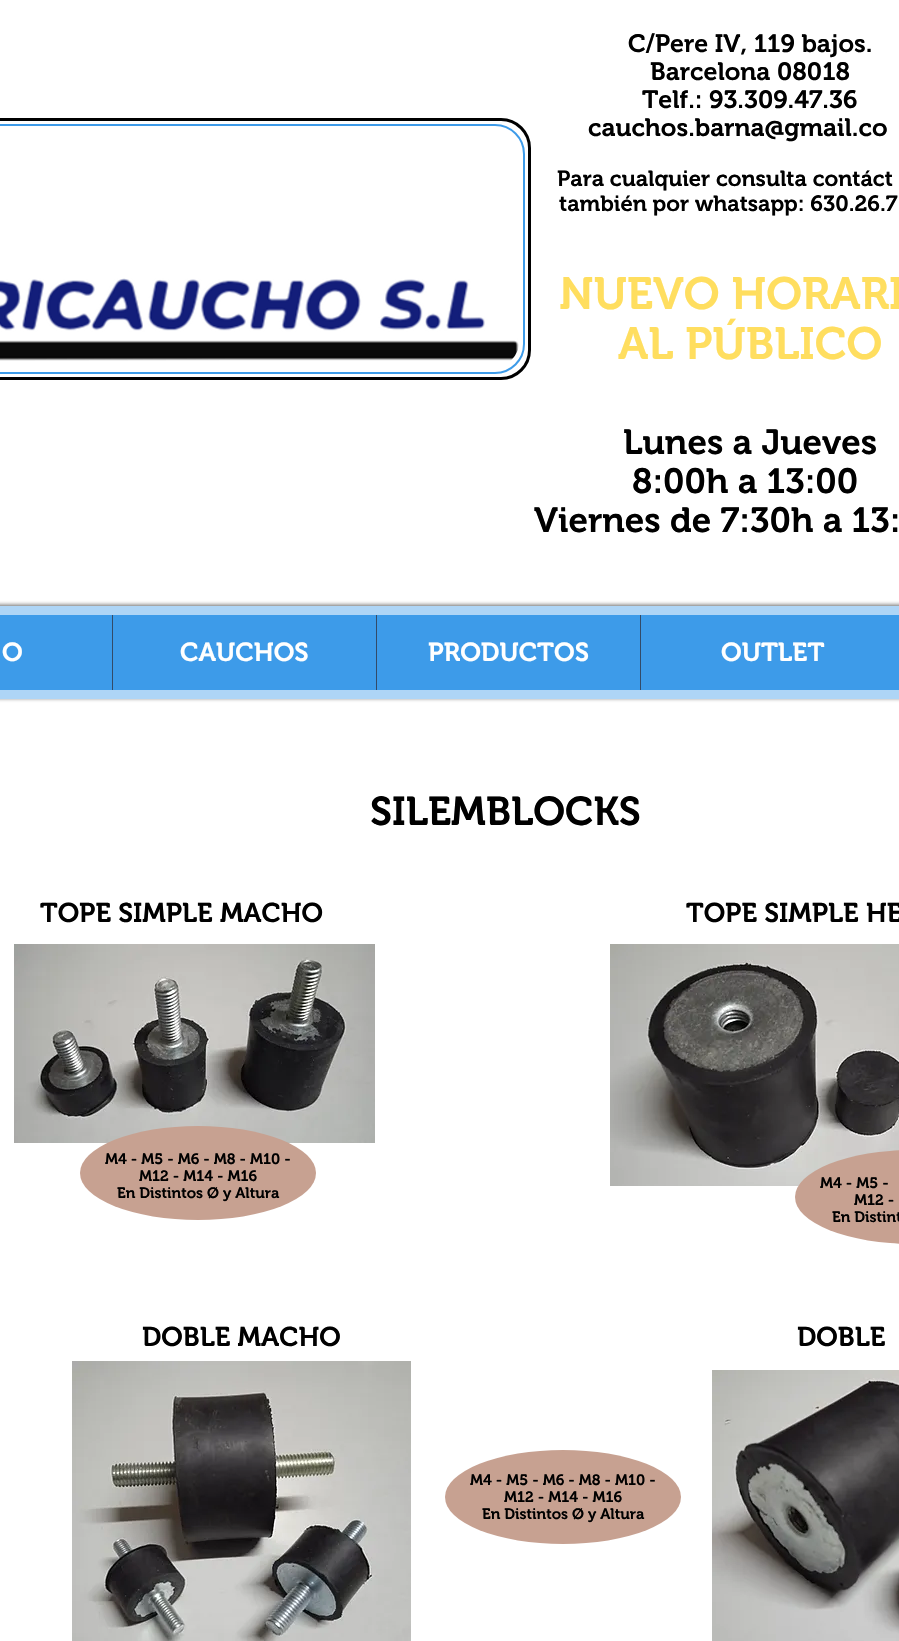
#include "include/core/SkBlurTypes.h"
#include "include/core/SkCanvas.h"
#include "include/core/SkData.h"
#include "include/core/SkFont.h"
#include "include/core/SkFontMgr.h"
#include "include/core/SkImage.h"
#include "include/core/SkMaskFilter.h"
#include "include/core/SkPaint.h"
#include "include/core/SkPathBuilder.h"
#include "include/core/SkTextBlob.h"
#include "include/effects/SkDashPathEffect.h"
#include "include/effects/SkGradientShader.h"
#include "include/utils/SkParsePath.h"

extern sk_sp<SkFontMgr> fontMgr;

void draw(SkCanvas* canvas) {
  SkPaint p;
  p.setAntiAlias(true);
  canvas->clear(SK_ColorWHITE);
  p.setStyle(SkPaint::kStroke_Style);
  p.setStrokeWidth(3);
  p.setColor(SK_ColorBLACK);
  canvas->drawRoundRect(SkRect::MakeLTRB(-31.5f, 119.5f, 529.5f, 378.5f), 28.5f, 28.5f, p);
  canvas->drawImageRect(SkImages::DeferredFromEncodedData(SkData::MakeFromFileName("images/1.png")), SkRect::MakeLTRB(0, 278, 519, 361), SkSamplingOptions());
  p.setStrokeWidth(2);
  p.setColor(SkColorSetRGB(61, 155, 233));
  canvas->drawRoundRect(SkRect::MakeLTRB(-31, 125, 524, 373), 29, 29, p);
  p.setStyle(SkPaint::kFill_Style);
  p.setColor(SkColorSetARGB(153, 0, 0, 0));
  p.setMaskFilter(SkMaskFilter::MakeBlur(kNormal_SkBlurStyle, 2));
  canvas->drawRoundRect(SkRect::MakeLTRB(-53, 605, 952, 698), 46.5f, 46.5f, p);
  p.setMaskFilter(nullptr);
  p.setColor(SkColorSetRGB(61, 155, 233));
  canvas->drawRect(SkRect::MakeLTRB(-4.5f, 610.5f, 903.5f, 694.5f), p);
  p.setStyle(SkPaint::kStroke_Style);
  p.setStrokeWidth(9);
  p.setColor(SkColorSetRGB(174, 213, 246));
  canvas->drawRect(SkRect::MakeLTRB(-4.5f, 610.5f, 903.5f, 694.5f), p);
  p.setStyle(SkPaint::kFill_Style);
  p.setColor(SkColorSetRGB(51, 75, 104));
  canvas->drawRect(SkRect::MakeLTRB(112, 615, 113, 690), p);
  canvas->drawRect(SkRect::MakeLTRB(376, 615, 377, 690), p);
  canvas->drawRect(SkRect::MakeLTRB(640, 615, 641, 690), p);
  canvas->drawImageRect(SkImages::DeferredFromEncodedData(SkData::MakeFromFileName("images/2.png")), SkRect::MakeLTRB(14, 944, 375, 1143), SkSamplingOptions());
  canvas->drawImageRect(SkImages::DeferredFromEncodedData(SkData::MakeFromFileName("images/3.png")), SkRect::MakeLTRB(610, 944, 899, 1186), SkSamplingOptions());
  p.setColor(SkColorSetRGB(199, 161, 145));
  canvas->drawOval(SkRect::MakeLTRB(80, 1126, 316, 1220), p);
  canvas->drawOval(SkRect::MakeLTRB(795, 1150, 1031, 1244), p);
  canvas->drawImageRect(SkImages::DeferredFromEncodedData(SkData::MakeFromFileName("images/4.png")), SkRect::MakeLTRB(72, 1361, 411, 1641), SkSamplingOptions());
  canvas->drawOval(SkRect::MakeLTRB(445, 1450, 681, 1544), p);
  canvas->drawImageRect(SkImages::DeferredFromEncodedData(SkData::MakeFromFileName("images/5.png")), SkRect::MakeLTRB(712, 1370, 899, 1641), SkSamplingOptions());
  SkFont font1(fontMgr->matchFamilyStyle("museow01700", SkFontStyle(600, SkFontStyle::kNormal_Width, SkFontStyle::kUpright_Slant)), 25);
  font1.setSubpixel(true);
  p.setColor(SK_ColorBLACK);
  canvas->drawString("C/Pere IV, 119 bajos.", 628, 52, font1, p);
  canvas->drawString("Barcelona 08018", 650, 80, font1, p);
  canvas->drawString("Telf.: 93.309.47.36", 642, 108, font1, p);
  canvas->drawString("cauchos.barna@gmail.co", 588, 136, font1, p);
  SkFont font2(fontMgr->matchFamilyStyle("museow01700", SkFontStyle(600, SkFontStyle::kNormal_Width, SkFontStyle::kUpright_Slant)), 22);
  font2.setSubpixel(true);
  canvas->drawString("Para cualquier consulta contáct", 557, 186, font2, p);
  canvas->drawString("también por whatsapp: 630.26.7", 559, 211, font2, p);
  SkFont font3(fontMgr->matchFamilyStyle("museow01700", SkFontStyle(600, SkFontStyle::kNormal_Width, SkFontStyle::kUpright_Slant)), 45);
  font3.setSubpixel(true);
  p.setColor(SkColorSetRGB(255, 222, 95));
  canvas->drawString("NUEVO HORARI", 559, 309, font3, p);
  canvas->drawString("AL PÚBLICO", 618, 359, font3, p);
  SkFont font4(fontMgr->matchFamilyStyle("museow01700", SkFontStyle(600, SkFontStyle::kNormal_Width, SkFontStyle::kUpright_Slant)), 35);
  font4.setSubpixel(true);
  p.setColor(SK_ColorBLACK);
  canvas->drawString("Lunes a Jueves", 623, 454, font4, p);
  canvas->drawString("8:00h a 13:00", 632, 493, font4, p);
  canvas->drawString("Viernes de 7:30h a 13:", 534, 532, font4, p);
  SkFont font5(fontMgr->matchFamilyStyle("museow01700", SkFontStyle(600, SkFontStyle::kNormal_Width, SkFontStyle::kUpright_Slant)), 26);
  font5.setSubpixel(true);
  p.setColor(SK_ColorWHITE);
  canvas->drawString("O", 2, 661, font5, p);
  canvas->drawString("CAUCHOS", 180, 661, font5, p);
  canvas->drawString("PRODUCTOS", 428, 661, font5, p);
  canvas->drawString("OUTLET", 721, 661, font5, p);
  SkFont font6(fontMgr->matchFamilyStyle("museow01700", SkFontStyle(600, SkFontStyle::kNormal_Width, SkFontStyle::kUpright_Slant)), 40);
  font6.setSubpixel(true);
  p.setColor(SK_ColorBLACK);
  canvas->drawString("SILEMBLOCKS", 370, 825, font6, p);
  SkFont font7(fontMgr->matchFamilyStyle("museow01700", SkFontStyle(600, SkFontStyle::kNormal_Width, SkFontStyle::kUpright_Slant)), 27);
  font7.setSubpixel(true);
  canvas->drawString("TOPE SIMPLE MACHO", 40, 922, font7, p);
  canvas->drawString("TOPE SIMPLE HE", 686, 922, font7, p);
  SkFont font8(fontMgr->matchFamilyStyle("museow01700", SkFontStyle(600, SkFontStyle::kNormal_Width, SkFontStyle::kUpright_Slant)), 15);
  font8.setSubpixel(true);
  canvas->drawString("M4 - M5 - M6 - M8 - M10 -", 105, 1164, font8, p);
  canvas->drawString("M12 - M14 - M16", 139, 1181, font8, p);
  canvas->drawString("En Distintos Ø y Altura", 117, 1198, font8, p);
  canvas->drawString("M4 - M5 -", 820, 1188, font8, p);
  canvas->drawString("M12 -", 854, 1205, font8, p);
  canvas->drawString("En Distint", 832, 1222, font8, p);
  canvas->drawString("DOBLE MACHO", 142, 1346, font7, p);
  canvas->drawString("DOBLE", 797, 1346, font7, p);
  canvas->drawString("M4 - M5 - M6 - M8 - M10 -", 470, 1485, font8, p);
  canvas->drawString("M12 - M14 - M16", 504, 1502, font8, p);
  canvas->drawString("En Distintos Ø y Altura", 482, 1519, font8, p);
}
